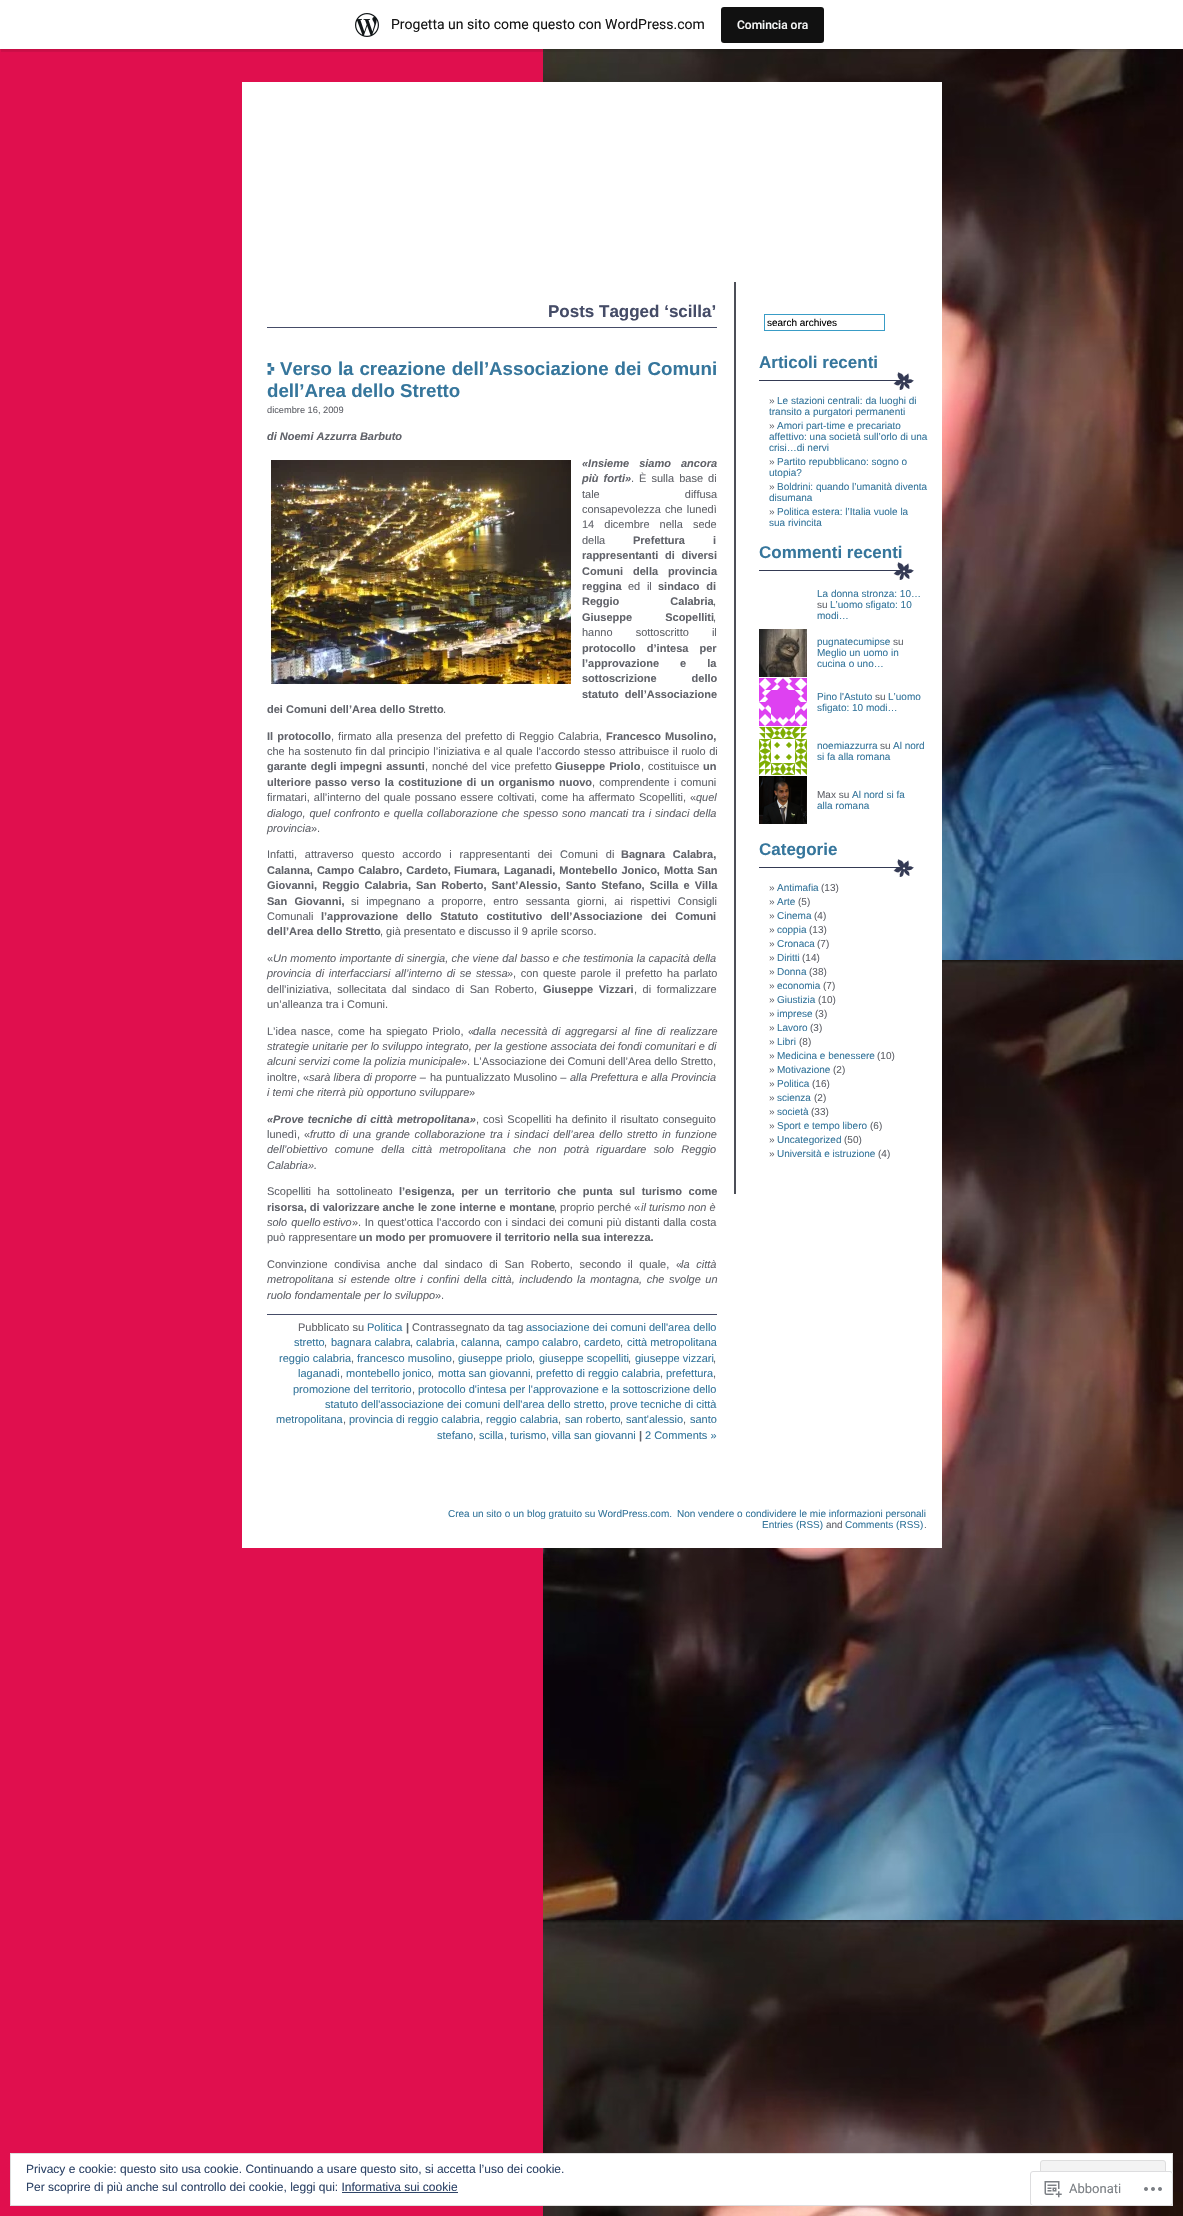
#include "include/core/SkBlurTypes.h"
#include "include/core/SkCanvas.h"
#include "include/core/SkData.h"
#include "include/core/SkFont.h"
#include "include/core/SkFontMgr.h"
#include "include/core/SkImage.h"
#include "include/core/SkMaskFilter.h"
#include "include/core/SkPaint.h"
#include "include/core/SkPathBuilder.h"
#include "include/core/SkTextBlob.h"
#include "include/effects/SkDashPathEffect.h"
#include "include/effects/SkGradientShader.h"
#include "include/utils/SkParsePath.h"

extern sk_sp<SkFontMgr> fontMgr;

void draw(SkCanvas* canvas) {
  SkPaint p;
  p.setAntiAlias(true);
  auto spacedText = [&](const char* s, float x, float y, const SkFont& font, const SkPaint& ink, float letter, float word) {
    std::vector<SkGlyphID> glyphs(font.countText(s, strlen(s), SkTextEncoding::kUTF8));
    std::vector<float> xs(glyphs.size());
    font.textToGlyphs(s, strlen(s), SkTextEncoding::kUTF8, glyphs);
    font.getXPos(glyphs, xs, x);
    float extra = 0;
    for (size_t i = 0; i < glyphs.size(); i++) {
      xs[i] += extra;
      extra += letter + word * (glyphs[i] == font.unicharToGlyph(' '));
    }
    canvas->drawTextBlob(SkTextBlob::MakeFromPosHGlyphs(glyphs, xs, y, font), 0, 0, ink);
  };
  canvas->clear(SkColorSetRGB(224, 15, 78));
  canvas->drawImageRect(SkImages::DeferredFromEncodedData(SkData::MakeFromFileName("images/1.png")), SkRect::MakeLTRB(543, 49, 1183, 2216), SkSamplingOptions());
  p.setColor(SkColorSetARGB(13, 0, 0, 0));
  p.setMaskFilter(SkMaskFilter::MakeBlur(kNormal_SkBlurStyle, 1));
  canvas->drawRect(SkRect::MakeLTRB(0, 1, 1183, 50), p);
  p.setMaskFilter(nullptr);
  p.setColor(SkColorSetARGB(20, 0, 0, 0));
  canvas->drawPath(SkPathBuilder().moveTo(1, 49).lineTo(1, 52).lineTo(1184, 52).lineTo(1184, 3).lineTo(1183, 3).lineTo(1183, 49).close().detach(), p);
  p.setColor(SK_ColorWHITE);
  canvas->drawRect(SkRect::MakeLTRB(0, 0, 1183, 49), p);
  canvas->drawImageRect(SkImages::DeferredFromEncodedData(SkData::MakeFromFileName("images/2.png")), SkRect::MakeLTRB(355, 13, 379, 37), SkSamplingOptions());
  p.setColor(SkColorSetRGB(17, 17, 17));
  canvas->drawRoundRect(SkRect::MakeLTRB(721, 7, 824, 43), 3, 3, p);
  p.setColor(SK_ColorWHITE);
  canvas->drawRect(SkRect::MakeLTRB(242, 82, 942, 1548), p);
  p.setColor(SkColorSetRGB(69, 76, 103));
  canvas->drawRect(SkRect::MakeLTRB(267, 327, 717, 328), p);
  canvas->drawImageRect(SkImages::DeferredFromEncodedData(SkData::MakeFromFileName("images/3.png")), SkRect::MakeLTRB(267, 363, 275, 375), SkSamplingOptions());
  canvas->drawImageRect(SkImages::DeferredFromEncodedData(SkData::MakeFromFileName("images/4.png")), SkRect::MakeLTRB(271, 460, 571, 684), SkSamplingOptions());
  canvas->drawRect(SkRect::MakeLTRB(267, 1314, 717, 1315), p);
  p.setColor(SkColorSetRGB(76, 79, 88));
  canvas->drawRect(SkRect::MakeLTRB(734, 282, 736, 1194), p);
  p.setStyle(SkPaint::kStroke_Style);
  p.setStrokeWidth(1);
  p.setColor(SkColorSetRGB(57, 156, 198));
  canvas->drawRect(SkRect::MakeLTRB(764.5f, 314.5f, 884.5f, 330.5f), p);
  canvas->drawImageRect(SkImages::DeferredFromEncodedData(SkData::MakeFromFileName("images/5.png")), SkRect::MakeLTRB(759, 372, 914, 390), SkSamplingOptions());
  canvas->drawImageRect(SkImages::DeferredFromEncodedData(SkData::MakeFromFileName("images/5.png")), SkRect::MakeLTRB(759, 562, 914, 580), SkSamplingOptions());
  canvas->drawImageRect(SkImages::DeferredFromEncodedData(SkData::MakeFromFileName("images/6.png")), SkRect::MakeLTRB(759, 629, 807, 677), SkSamplingOptions());
  canvas->drawImageRect(SkImages::DeferredFromEncodedData(SkData::MakeFromFileName("images/7.png")), SkRect::MakeLTRB(759, 678, 807, 726), SkSamplingOptions());
  canvas->drawImageRect(SkImages::DeferredFromEncodedData(SkData::MakeFromFileName("images/8.png")), SkRect::MakeLTRB(759, 727, 807, 775), SkSamplingOptions());
  canvas->drawImageRect(SkImages::DeferredFromEncodedData(SkData::MakeFromFileName("images/9.png")), SkRect::MakeLTRB(759, 776, 807, 824), SkSamplingOptions());
  canvas->drawImageRect(SkImages::DeferredFromEncodedData(SkData::MakeFromFileName("images/5.png")), SkRect::MakeLTRB(759, 859, 914, 877), SkSamplingOptions());
  p.setStyle(SkPaint::kFill_Style);
  p.setColor(SK_ColorWHITE);
  canvas->drawRect(SkRect::MakeLTRB(10.5f, 2153.5f, 1172.5f, 2205.5f), p);
  p.setStyle(SkPaint::kStroke_Style);
  p.setColor(SkColorSetRGB(222, 222, 222));
  canvas->drawRect(SkRect::MakeLTRB(10.5f, 2153.5f, 1172.5f, 2205.5f), p);
  p.setStyle(SkPaint::kFill_Style);
  p.setColor(SkColorSetRGB(243, 243, 243));
  canvas->drawRoundRect(SkRect::MakeLTRB(1040.5f, 2160.5f, 1165.5f, 2198.5f), 2.5f, 2.5f, p);
  p.setStyle(SkPaint::kStroke_Style);
  p.setColor(SkColorSetRGB(222, 222, 222));
  canvas->drawRoundRect(SkRect::MakeLTRB(1040.5f, 2160.5f, 1165.5f, 2198.5f), 2.5f, 2.5f, p);
  p.setStyle(SkPaint::kFill_Style);
  p.setColor(SkColorSetRGB(46, 68, 103));
  canvas->drawRect(SkRect::MakeLTRB(342, 2192, 458, 2193), p);
  p.setColor(SkColorSetARGB(250, 255, 255, 255));
  canvas->drawRoundRect(SkRect::MakeLTRB(1030, 2171, 1173, 2206), 3, 3, p);
  p.setStyle(SkPaint::kStroke_Style);
  p.setColor(SkColorSetARGB(250, 220, 220, 222));
  canvas->drawRoundRect(SkRect::MakeLTRB(1030.5f, 2171.5f, 1172.5f, 2205.5f), 2.5f, 2.5f, p);
  canvas->drawImageRect(SkImages::DeferredFromEncodedData(SkData::MakeFromFileName("images/10.png")), SkRect::MakeLTRB(1044, 2181, 1062, 2198), SkSamplingOptions());
  canvas->drawImageRect(SkImages::DeferredFromEncodedData(SkData::MakeFromFileName("images/11.png")), SkRect::MakeLTRB(1144, 2187, 1162, 2191), SkSamplingOptions());
  SkFont font1(fontMgr->matchFamilyStyle("Roboto", SkFontStyle::Normal()), 14);
  font1.setSubpixel(true);
  p.setStyle(SkPaint::kFill_Style);
  p.setColor(SkColorSetRGB(23, 23, 23));
  canvas->drawString("Progetta un sito come questo con WordPress.com", 391, 29, font1, p);
  SkFont font2(fontMgr->matchFamilyStyle("Roboto", SkFontStyle(500, SkFontStyle::kNormal_Width, SkFontStyle::kUpright_Slant)), 12);
  font2.setSubpixel(true);
  p.setColor(SkColorSetRGB(246, 247, 247));
  canvas->drawString("Comincia ora", 737, 29, font2, p);
  SkFont font3(fontMgr->matchFamilyStyle("Liberation Sans", SkFontStyle::Bold()), 17);
  font3.setSubpixel(true);
  p.setColor(SkColorSetRGB(69, 76, 103));
  canvas->drawString("Posts Tagged ‘scilla’", 548, 317, font3, p);
  SkFont font4(fontMgr->matchFamilyStyle("Liberation Sans", SkFontStyle::Bold()), 18.7f);
  font4.setSubpixel(true);
  p.setColor(SkColorSetRGB(54, 118, 156));
  spacedText("Verso la creazione dell’Associazione dei Comuni", 280, 375, font4, p, 0, 0.75f);
  canvas->drawString("dell’Area dello Stretto", 267, 397, font4, p);
  SkFont font5(fontMgr->matchFamilyStyle("Liberation Sans", SkFontStyle::Normal()), 9.25f);
  font5.setSubpixel(true);
  p.setColor(SkColorSetRGB(97, 99, 106));
  canvas->drawString("dicembre 16, 2009", 267, 413, font5, p);
  SkFont font6(fontMgr->matchFamilyStyle("Liberation Sans", SkFontStyle::BoldItalic()), 11);
  font6.setSubpixel(true);
  canvas->drawString("di Noemi Azzurra Barbuto", 267, 440, font6, p);
  spacedText("«Insieme siamo ancora", 582, 467, font6, p, 0, 7);
  spacedText("più forti»", 582, 482, font6, p, 0, 2);
  SkFont font7(fontMgr->matchFamilyStyle("Liberation Sans", SkFontStyle::Normal()), 11);
  font7.setSubpixel(true);
  spacedText(". È sulla base di", 631, 482, font7, p, 0, 2);
  spacedText("tale diffusa", 582, 498, font7, p, 0, 82);
  spacedText("consapevolezza che lunedì", 582, 513, font7, p, 0, 1);
  spacedText("14 dicembre nella sede", 582, 528, font7, p, 0, 7);
  canvas->drawString("della", 582, 544, font7, p);
  SkFont font8(fontMgr->matchFamilyStyle("Liberation Sans", SkFontStyle::Bold()), 11);
  font8.setSubpixel(true);
  canvas->drawString("Prefettura", 633, 544, font8, p);
  canvas->drawString("i", 713, 544, font8, p);
  spacedText("rappresentanti di diversi", 582, 559, font8, p, 0, 3.6f);
  spacedText("Comuni della provincia", 582, 575, font8, p, 0, 7);
  canvas->drawString("reggina", 582, 590, font8, p);
  spacedText("ed il", 628, 590, font7, p, 0, 3.6f);
  spacedText("sindaco di", 658, 590, font8, p, 0, 3.6f);
  spacedText("Reggio Calabria", 582, 605, font8, p, 0, 48);
  canvas->drawString(",", 713, 605, font7, p);
  spacedText("Giuseppe Scopelliti", 582, 621, font8, p, 0, 30);
  canvas->drawString(",", 713, 621, font7, p);
  spacedText("hanno sottoscritto il", 582, 636, font7, p, 0, 20);
  spacedText("protocollo d’intesa per", 582, 652, font8, p, 0, 8);
  spacedText("l’approvazione e la", 582, 667, font8, p, 0, 18);
  spacedText("sottoscrizione dello", 582, 682, font8, p, 0, 32);
  spacedText("statuto dell’Associazione", 582, 698, font8, p, 0, 3);
  canvas->drawString("dei Comuni dell’Area dello Stretto", 267, 713, font8, p);
  canvas->drawString(".", 443, 713, font7, p);
  spacedText("Il protocollo", 267, 740, font8, p, 0, 1);
  spacedText(", firmato alla presenza del prefetto di Reggio Calabria,", 331, 740, font7, p, 0, 1);
  spacedText("Francesco Musolino,", 606, 740, font8, p, 0, 1);
  spacedText("che ha sostenuto fin dal principio l’iniziativa e al quale l’accordo stesso attribuisce il ruolo di", 267, 755, font7, p, 0, 0.5f);
  spacedText("garante degli", 267, 770, font8, p, 0, 1);
  spacedText("impegni assunti", 340, 770, font8, p, 0, 1);
  spacedText(", nonché del vice prefetto", 425, 770, font7, p, 0, 1);
  spacedText("Giuseppe Priolo", 555, 770, font8, p, 0, 1);
  spacedText(", costituisce", 641, 770, font7, p, 0, 1);
  canvas->drawString("un", 703, 770, font8, p);
  spacedText("ulteriore passo", 267, 786, font8, p, 0, 1);
  spacedText("verso la costituzione di un organismo nuovo", 351, 786, font8, p, 0, 1.25f);
  spacedText(", comprendente i comuni", 592, 786, font7, p, 0, 1.25f);
  spacedText("firmatari, all’interno del quale possano essere coltivati, come ha affermato Scopelliti, «", 267, 801, font7, p, 0, 1);
  SkFont font9(fontMgr->matchFamilyStyle("Liberation Sans", SkFontStyle::Italic()), 11);
  font9.setSubpixel(true);
  canvas->drawString("quel", 696, 801, font9, p);
  spacedText("dialogo, quel confronto e quella collaborazione che spesso sono mancati tra i sindaci della", 267, 817, font9, p, 0, 0.8f);
  canvas->drawString("provincia", 267, 832, font9, p);
  canvas->drawString("».", 311, 832, font7, p);
  spacedText("Infatti, attraverso questo accordo i rappresentanti dei Comuni di", 267, 858, font7, p, 0, 4.75f);
  spacedText("Bagnara Calabra,", 621, 858, font8, p, 0, 4.75f);
  spacedText("Calanna, Campo Calabro, Cardeto,", 267, 874, font8, p, 0, 1);
  spacedText("Fiumara, Laganadi, Montebello Jonico, Motta San", 454, 874, font8, p, 0, 1);
  spacedText("Giovanni, Reggio Calabria, San Roberto, Sant’Alessio, Santo Stefano, Scilla e Villa", 267, 889, font8, p, 0, 2);
  spacedText("San Giovanni,", 267, 905, font8, p, 0, 4.25f);
  spacedText("si impegnano a proporre, entro sessanta giorni, ai rispettivi Consigli", 351, 905, font7, p, 0, 4.25f);
  canvas->drawString("Comunali", 267, 920, font7, p);
  spacedText("l’approvazione dello Statuto costitutivo dell’Associazione dei Comuni", 321, 920, font8, p, 0, 5.25f);
  canvas->drawString("dell’Area dello Stretto", 267, 935, font8, p);
  canvas->drawString(", già presentato e discusso il 9 aprile scorso.", 380, 935, font7, p);
  canvas->drawString("«", 267, 962, font7, p);
  spacedText("Un momento importante di sinergia, che viene dal basso e che testimonia la capacità della", 273, 962, font9, p, 0, 0.25f);
  spacedText("provincia di interfacciarsi all’interno di se stessa", 267, 977, font9, p, 0, 1.5f);
  spacedText("», con queste parole il prefetto ha parlato", 507, 977, font7, p, 0, 1.5f);
  spacedText("dell’iniziativa, sollecitata dal sindaco di San Roberto,", 267, 993, font7, p, 0, 2.5f);
  spacedText("Giuseppe Vizzari", 543, 993, font8, p, 0, 2.5f);
  spacedText(", di formalizzare", 634, 993, font7, p, 0, 2.5f);
  canvas->drawString("un’alleanza tra i Comuni.", 267, 1008, font7, p);
  spacedText("L’idea nasce, come ha spiegato Priolo, «", 267, 1035, font7, p, 0, 1.5f);
  spacedText("dalla necessità di aggregarsi al fine di realizzare", 473, 1035, font9, p, 0, 1.5f);
  spacedText("strategie unitarie per lo sviluppo integrato, per la gestione associata dei fondi comunitari e", 267, 1050, font9, p, 0, 0.1f);
  canvas->drawString("di", 708, 1050, font9, p);
  canvas->drawString("alcuni servizi come la polizia municipale", 267, 1065, font9, p);
  canvas->drawString("». L’Associazione dei Comuni dell’Area dello Stretto,", 461, 1065, font7, p);
  canvas->drawString("inoltre, «", 267, 1081, font7, p);
  canvas->drawString("sarà libera di proporre –", 309, 1081, font9, p);
  canvas->drawString("ha puntualizzato Musolino –", 430, 1081, font7, p);
  canvas->drawString("alla Prefettura e alla Provincia", 570, 1081, font9, p);
  canvas->drawString("i temi che riterrà più opportuno sviluppare", 267, 1096, font9, p);
  canvas->drawString("»", 469, 1096, font7, p);
  spacedText("«Prove tecniche di città metropolitana»", 267, 1123, font6, p, 0, 1);
  spacedText(", così Scopelliti ha definito il risultato conseguito", 476, 1123, font7, p, 0, 1);
  spacedText("lunedì, «", 267, 1138, font7, p, 0, 1);
  spacedText("frutto di una grande collaborazione tra i sindaci dell’area dello stretto in funzione", 310, 1138, font9, p, 0, 1.5f);
  spacedText("dell’obiettivo comune della città metropolitana che non potrà riguardare solo Reggio", 267, 1153, font9, p, 0, 4.25f);
  canvas->drawString("Calabria».", 267, 1169, font9, p);
  spacedText("Scopelliti ha sottolineato", 267, 1195, font7, p, 0, 3.5f);
  spacedText("l’esigenza, per un territorio che punta sul turismo come", 399, 1195, font8, p, 0, 3.5f);
  canvas->drawString("risorsa, di valorizzare anche", 267, 1211, font8, p);
  spacedText("le zone interne e montane", 418, 1211, font8, p, 0, 0.5f);
  canvas->drawString(", proprio perché «", 554, 1211, font7, p);
  canvas->drawString("il turismo non è", 641, 1211, font9, p);
  spacedText("solo quello", 267, 1226, font9, p, 0, 1);
  canvas->drawString("estivo", 323, 1226, font9, p);
  spacedText("». In quest’ottica l’accordo con i sindaci dei comuni più distanti dalla costa", 352, 1226, font7, p, 0, 0.5f);
  canvas->drawString("può rappresentare", 267, 1241, font7, p);
  canvas->drawString("un modo per promuovere il territorio nella sua interezza.", 359, 1241, font8, p);
  spacedText("Convinzione condivisa anche dal sindaco di San Roberto, secondo il quale, «", 267, 1268, font7, p, 0, 3.6f);
  spacedText("la città", 681, 1268, font9, p, 0, 3.6f);
  spacedText("metropolitana si estende oltre i confini della città, includendo la montagna, che svolge un", 267, 1283, font9, p, 0, 1.5f);
  canvas->drawString("ruolo fondamentale per lo sviluppo", 267, 1299, font9, p);
  canvas->drawString("».", 435, 1299, font7, p);
  canvas->drawString("Pubblicato su", 298, 1331, font7, p);
  p.setColor(SkColorSetRGB(54, 118, 156));
  canvas->drawString("Politica", 367, 1331, font7, p);
  p.setColor(SkColorSetRGB(97, 99, 106));
  canvas->drawString("|", 406, 1331, font8, p);
  canvas->drawString("Contrassegnato da tag", 412, 1331, font7, p);
  p.setColor(SkColorSetRGB(54, 118, 156));
  canvas->drawString("associazione dei comuni dell'area dello", 526, 1331, font7, p);
  canvas->drawString("stretto", 294, 1346, font7, p);
  p.setColor(SkColorSetRGB(97, 99, 106));
  canvas->drawString(",", 324, 1346, font7, p);
  p.setColor(SkColorSetRGB(54, 118, 156));
  canvas->drawString("bagnara calabra", 331, 1346, font7, p);
  p.setColor(SkColorSetRGB(97, 99, 106));
  canvas->drawString(",", 410, 1346, font7, p);
  p.setColor(SkColorSetRGB(54, 118, 156));
  canvas->drawString("calabria", 416, 1346, font7, p);
  p.setColor(SkColorSetRGB(97, 99, 106));
  canvas->drawString(",", 455, 1346, font7, p);
  p.setColor(SkColorSetRGB(54, 118, 156));
  canvas->drawString("calanna", 461, 1346, font7, p);
  p.setColor(SkColorSetRGB(97, 99, 106));
  canvas->drawString(",", 499, 1346, font7, p);
  p.setColor(SkColorSetRGB(54, 118, 156));
  canvas->drawString("campo calabro", 506, 1346, font7, p);
  p.setColor(SkColorSetRGB(97, 99, 106));
  canvas->drawString(",", 578, 1346, font7, p);
  p.setColor(SkColorSetRGB(54, 118, 156));
  canvas->drawString("cardeto", 584, 1346, font7, p);
  p.setColor(SkColorSetRGB(97, 99, 106));
  canvas->drawString(",", 620, 1346, font7, p);
  p.setColor(SkColorSetRGB(54, 118, 156));
  canvas->drawString("città metropolitana", 627, 1346, font7, p);
  canvas->drawString("reggio calabria", 279, 1362, font7, p);
  p.setColor(SkColorSetRGB(97, 99, 106));
  canvas->drawString(",", 351, 1362, font7, p);
  p.setColor(SkColorSetRGB(54, 118, 156));
  canvas->drawString("francesco musolino", 357, 1362, font7, p);
  p.setColor(SkColorSetRGB(97, 99, 106));
  canvas->drawString(",", 452, 1362, font7, p);
  p.setColor(SkColorSetRGB(54, 118, 156));
  canvas->drawString("giuseppe priolo", 458, 1362, font7, p);
  p.setColor(SkColorSetRGB(97, 99, 106));
  canvas->drawString(",", 532, 1362, font7, p);
  p.setColor(SkColorSetRGB(54, 118, 156));
  canvas->drawString("giuseppe scopelliti", 539, 1362, font7, p);
  p.setColor(SkColorSetRGB(97, 99, 106));
  canvas->drawString(",", 628, 1362, font7, p);
  p.setColor(SkColorSetRGB(54, 118, 156));
  canvas->drawString("giuseppe vizzari", 635, 1362, font7, p);
  p.setColor(SkColorSetRGB(97, 99, 106));
  canvas->drawString(",", 713, 1362, font7, p);
  p.setColor(SkColorSetRGB(54, 118, 156));
  canvas->drawString("laganadi", 298, 1377, font7, p);
  p.setColor(SkColorSetRGB(97, 99, 106));
  canvas->drawString(",", 340, 1377, font7, p);
  p.setColor(SkColorSetRGB(54, 118, 156));
  canvas->drawString("montebello jonico", 346, 1377, font7, p);
  p.setColor(SkColorSetRGB(97, 99, 106));
  canvas->drawString(",", 431, 1377, font7, p);
  p.setColor(SkColorSetRGB(54, 118, 156));
  canvas->drawString("motta san giovanni", 438, 1377, font7, p);
  p.setColor(SkColorSetRGB(97, 99, 106));
  canvas->drawString(",", 530, 1377, font7, p);
  p.setColor(SkColorSetRGB(54, 118, 156));
  canvas->drawString("prefetto di reggio calabria", 536, 1377, font7, p);
  p.setColor(SkColorSetRGB(97, 99, 106));
  canvas->drawString(",", 660, 1377, font7, p);
  p.setColor(SkColorSetRGB(54, 118, 156));
  canvas->drawString("prefettura", 666, 1377, font7, p);
  p.setColor(SkColorSetRGB(97, 99, 106));
  canvas->drawString(",", 713, 1377, font7, p);
  p.setColor(SkColorSetRGB(54, 118, 156));
  canvas->drawString("promozione del territorio", 293, 1393, font7, p);
  p.setColor(SkColorSetRGB(97, 99, 106));
  canvas->drawString(",", 412, 1393, font7, p);
  p.setColor(SkColorSetRGB(54, 118, 156));
  canvas->drawString("protocollo d'intesa per l'approvazione e la sottoscrizione dello", 418, 1393, font7, p);
  canvas->drawString("statuto dell'associazione dei comuni dell'area dello stretto", 325, 1408, font7, p);
  p.setColor(SkColorSetRGB(97, 99, 106));
  canvas->drawString(",", 604, 1408, font7, p);
  p.setColor(SkColorSetRGB(54, 118, 156));
  canvas->drawString("prove tecniche di città", 610, 1408, font7, p);
  canvas->drawString("metropolitana", 276, 1423, font7, p);
  p.setColor(SkColorSetRGB(97, 99, 106));
  canvas->drawString(",", 343, 1423, font7, p);
  p.setColor(SkColorSetRGB(54, 118, 156));
  canvas->drawString("provincia di reggio calabria", 349, 1423, font7, p);
  p.setColor(SkColorSetRGB(97, 99, 106));
  canvas->drawString(",", 480, 1423, font7, p);
  p.setColor(SkColorSetRGB(54, 118, 156));
  canvas->drawString("reggio calabria", 486, 1423, font7, p);
  p.setColor(SkColorSetRGB(97, 99, 106));
  canvas->drawString(",", 558, 1423, font7, p);
  p.setColor(SkColorSetRGB(54, 118, 156));
  canvas->drawString("san roberto", 565, 1423, font7, p);
  p.setColor(SkColorSetRGB(97, 99, 106));
  canvas->drawString(",", 620, 1423, font7, p);
  p.setColor(SkColorSetRGB(54, 118, 156));
  canvas->drawString("sant'alessio", 626, 1423, font7, p);
  p.setColor(SkColorSetRGB(97, 99, 106));
  canvas->drawString(",", 683, 1423, font7, p);
  p.setColor(SkColorSetRGB(54, 118, 156));
  canvas->drawString("santo", 690, 1423, font7, p);
  canvas->drawString("stefano", 437, 1439, font7, p);
  p.setColor(SkColorSetRGB(97, 99, 106));
  canvas->drawString(",", 473, 1439, font7, p);
  p.setColor(SkColorSetRGB(54, 118, 156));
  canvas->drawString("scilla", 479, 1439, font7, p);
  p.setColor(SkColorSetRGB(97, 99, 106));
  canvas->drawString(",", 504, 1439, font7, p);
  p.setColor(SkColorSetRGB(54, 118, 156));
  canvas->drawString("turismo", 510, 1439, font7, p);
  p.setColor(SkColorSetRGB(97, 99, 106));
  canvas->drawString(",", 546, 1439, font7, p);
  p.setColor(SkColorSetRGB(54, 118, 156));
  canvas->drawString("villa san giovanni", 552, 1439, font7, p);
  p.setColor(SkColorSetRGB(97, 99, 106));
  canvas->drawString("|", 639, 1439, font8, p);
  p.setColor(SkColorSetRGB(54, 118, 156));
  canvas->drawString("2 Comments »", 645, 1439, font7, p);
  SkFont font10(fontMgr->matchFamilyStyle("Liberation Sans", SkFontStyle::Normal()), 10);
  font10.setSubpixel(true);
  p.setColor(SK_ColorBLACK);
  canvas->drawString("search archives", 767, 326, font10, p);
  p.setColor(SkColorSetRGB(54, 118, 156));
  canvas->drawString("Articoli recenti", 759, 368, font3, p);
  p.setColor(SkColorSetRGB(97, 99, 106));
  canvas->drawString("»", 769, 404, font10, p);
  p.setColor(SkColorSetRGB(54, 118, 156));
  canvas->drawString("Le stazioni centrali: da luoghi di", 777, 404, font10, p);
  canvas->drawString("transito a purgatori permanenti", 769, 415, font10, p);
  p.setColor(SkColorSetRGB(97, 99, 106));
  canvas->drawString("»", 769, 429, font10, p);
  p.setColor(SkColorSetRGB(54, 118, 156));
  canvas->drawString("Amori part-time e precariato", 777, 429, font10, p);
  canvas->drawString("affettivo: una società sull’orlo di una", 769, 440, font10, p);
  canvas->drawString("crisi…di nervi", 769, 451, font10, p);
  p.setColor(SkColorSetRGB(97, 99, 106));
  canvas->drawString("»", 769, 465, font10, p);
  p.setColor(SkColorSetRGB(54, 118, 156));
  canvas->drawString("Partito repubblicano: sogno o", 777, 465, font10, p);
  canvas->drawString("utopia?", 769, 476, font10, p);
  p.setColor(SkColorSetRGB(97, 99, 106));
  canvas->drawString("»", 769, 490, font10, p);
  p.setColor(SkColorSetRGB(54, 118, 156));
  canvas->drawString("Boldrini: quando l’umanità diventa", 777, 490, font10, p);
  canvas->drawString("disumana", 769, 501, font10, p);
  p.setColor(SkColorSetRGB(97, 99, 106));
  canvas->drawString("»", 769, 515, font10, p);
  p.setColor(SkColorSetRGB(54, 118, 156));
  canvas->drawString("Politica estera: l’Italia vuole la", 777, 515, font10, p);
  canvas->drawString("sua rivincita", 769, 526, font10, p);
  canvas->drawString("Commenti recenti", 759, 558, font3, p);
  canvas->drawString("La donna stronza: 10…", 817, 597, font10, p);
  p.setColor(SkColorSetRGB(97, 99, 106));
  canvas->drawString("su", 817, 608, font10, p);
  p.setColor(SkColorSetRGB(54, 118, 156));
  canvas->drawString("L’uomo sfigato: 10", 830, 608, font10, p);
  canvas->drawString("modi…", 817, 619, font10, p);
  canvas->drawString("pugnatecumipse", 817, 645, font10, p);
  p.setColor(SkColorSetRGB(97, 99, 106));
  canvas->drawString("su", 893, 645, font10, p);
  p.setColor(SkColorSetRGB(54, 118, 156));
  canvas->drawString("Meglio un uomo in", 817, 656, font10, p);
  canvas->drawString("cucina o uno…", 817, 667, font10, p);
  canvas->drawString("Pino l'Astuto", 817, 700, font10, p);
  p.setColor(SkColorSetRGB(97, 99, 106));
  canvas->drawString("su", 875, 700, font10, p);
  p.setColor(SkColorSetRGB(54, 118, 156));
  canvas->drawString("L’uomo", 888, 700, font10, p);
  canvas->drawString("sfigato: 10 modi…", 817, 711, font10, p);
  canvas->drawString("noemiazzurra", 817, 749, font10, p);
  p.setColor(SkColorSetRGB(97, 99, 106));
  canvas->drawString("su", 880, 749, font10, p);
  p.setColor(SkColorSetRGB(54, 118, 156));
  canvas->drawString("Al nord", 893, 749, font10, p);
  canvas->drawString("si fa alla romana", 817, 760, font10, p);
  p.setColor(SkColorSetRGB(97, 99, 106));
  canvas->drawString("Max su", 817, 798, font10, p);
  p.setColor(SkColorSetRGB(54, 118, 156));
  canvas->drawString("Al nord si fa", 852, 798, font10, p);
  canvas->drawString("alla romana", 817, 809, font10, p);
  canvas->drawString("Categorie", 759, 855, font3, p);
  p.setColor(SkColorSetRGB(97, 99, 106));
  canvas->drawString("»", 769, 891, font10, p);
  p.setColor(SkColorSetRGB(54, 118, 156));
  canvas->drawString("Antimafia", 777, 891, font10, p);
  p.setColor(SkColorSetRGB(97, 99, 106));
  canvas->drawString("(13)", 821, 891, font10, p);
  canvas->drawString("»", 769, 905, font10, p);
  p.setColor(SkColorSetRGB(54, 118, 156));
  canvas->drawString("Arte", 777, 905, font10, p);
  p.setColor(SkColorSetRGB(97, 99, 106));
  canvas->drawString("(5)", 798, 905, font10, p);
  canvas->drawString("»", 769, 919, font10, p);
  p.setColor(SkColorSetRGB(54, 118, 156));
  canvas->drawString("Cinema", 777, 919, font10, p);
  p.setColor(SkColorSetRGB(97, 99, 106));
  canvas->drawString("(4)", 814, 919, font10, p);
  canvas->drawString("»", 769, 933, font10, p);
  p.setColor(SkColorSetRGB(54, 118, 156));
  canvas->drawString("coppia", 777, 933, font10, p);
  p.setColor(SkColorSetRGB(97, 99, 106));
  canvas->drawString("(13)", 809, 933, font10, p);
  canvas->drawString("»", 769, 947, font10, p);
  p.setColor(SkColorSetRGB(54, 118, 156));
  canvas->drawString("Cronaca", 777, 947, font10, p);
  p.setColor(SkColorSetRGB(97, 99, 106));
  canvas->drawString("(7)", 817, 947, font10, p);
  canvas->drawString("»", 769, 961, font10, p);
  p.setColor(SkColorSetRGB(54, 118, 156));
  canvas->drawString("Diritti", 777, 961, font10, p);
  p.setColor(SkColorSetRGB(97, 99, 106));
  canvas->drawString("(14)", 802, 961, font10, p);
  canvas->drawString("»", 769, 975, font10, p);
  p.setColor(SkColorSetRGB(54, 118, 156));
  canvas->drawString("Donna", 777, 975, font10, p);
  p.setColor(SkColorSetRGB(97, 99, 106));
  canvas->drawString("(38)", 809, 975, font10, p);
  canvas->drawString("»", 769, 989, font10, p);
  p.setColor(SkColorSetRGB(54, 118, 156));
  canvas->drawString("economia", 777, 989, font10, p);
  p.setColor(SkColorSetRGB(97, 99, 106));
  canvas->drawString("(7)", 823, 989, font10, p);
  canvas->drawString("»", 769, 1003, font10, p);
  p.setColor(SkColorSetRGB(54, 118, 156));
  canvas->drawString("Giustizia", 777, 1003, font10, p);
  p.setColor(SkColorSetRGB(97, 99, 106));
  canvas->drawString("(10)", 818, 1003, font10, p);
  canvas->drawString("»", 769, 1017, font10, p);
  p.setColor(SkColorSetRGB(54, 118, 156));
  canvas->drawString("imprese", 777, 1017, font10, p);
  p.setColor(SkColorSetRGB(97, 99, 106));
  canvas->drawString("(3)", 815, 1017, font10, p);
  canvas->drawString("»", 769, 1031, font10, p);
  p.setColor(SkColorSetRGB(54, 118, 156));
  canvas->drawString("Lavoro", 777, 1031, font10, p);
  p.setColor(SkColorSetRGB(97, 99, 106));
  canvas->drawString("(3)", 810, 1031, font10, p);
  canvas->drawString("»", 769, 1045, font10, p);
  p.setColor(SkColorSetRGB(54, 118, 156));
  canvas->drawString("Libri", 777, 1045, font10, p);
  p.setColor(SkColorSetRGB(97, 99, 106));
  canvas->drawString("(8)", 799, 1045, font10, p);
  canvas->drawString("»", 769, 1059, font10, p);
  p.setColor(SkColorSetRGB(54, 118, 156));
  canvas->drawString("Medicina e benessere", 777, 1059, font10, p);
  p.setColor(SkColorSetRGB(97, 99, 106));
  canvas->drawString("(10)", 877, 1059, font10, p);
  canvas->drawString("»", 769, 1073, font10, p);
  p.setColor(SkColorSetRGB(54, 118, 156));
  canvas->drawString("Motivazione", 777, 1073, font10, p);
  p.setColor(SkColorSetRGB(97, 99, 106));
  canvas->drawString("(2)", 833, 1073, font10, p);
  canvas->drawString("»", 769, 1087, font10, p);
  p.setColor(SkColorSetRGB(54, 118, 156));
  canvas->drawString("Politica", 777, 1087, font10, p);
  p.setColor(SkColorSetRGB(97, 99, 106));
  canvas->drawString("(16)", 812, 1087, font10, p);
  canvas->drawString("»", 769, 1101, font10, p);
  p.setColor(SkColorSetRGB(54, 118, 156));
  canvas->drawString("scienza", 777, 1101, font10, p);
  p.setColor(SkColorSetRGB(97, 99, 106));
  canvas->drawString("(2)", 814, 1101, font10, p);
  canvas->drawString("»", 769, 1115, font10, p);
  p.setColor(SkColorSetRGB(54, 118, 156));
  canvas->drawString("società", 777, 1115, font10, p);
  p.setColor(SkColorSetRGB(97, 99, 106));
  canvas->drawString("(33)", 811, 1115, font10, p);
  canvas->drawString("»", 769, 1129, font10, p);
  p.setColor(SkColorSetRGB(54, 118, 156));
  canvas->drawString("Sport e tempo libero", 777, 1129, font10, p);
  p.setColor(SkColorSetRGB(97, 99, 106));
  canvas->drawString("(6)", 870, 1129, font10, p);
  canvas->drawString("»", 769, 1143, font10, p);
  p.setColor(SkColorSetRGB(54, 118, 156));
  canvas->drawString("Uncategorized", 777, 1143, font10, p);
  p.setColor(SkColorSetRGB(97, 99, 106));
  canvas->drawString("(50)", 844, 1143, font10, p);
  canvas->drawString("»", 769, 1157, font10, p);
  p.setColor(SkColorSetRGB(54, 118, 156));
  canvas->drawString("Università e istruzione", 777, 1157, font10, p);
  p.setColor(SkColorSetRGB(97, 99, 106));
  canvas->drawString("(4)", 878, 1157, font10, p);
  p.setColor(SkColorSetRGB(54, 118, 156));
  canvas->drawString("Crea un sito o un blog gratuito su WordPress.com.", 448, 1517, font10, p);
  canvas->drawString("Non vendere o condividere le mie informazioni personali", 677, 1517, font10, p);
  canvas->drawString("Entries (RSS)", 762, 1528, font10, p);
  p.setColor(SkColorSetRGB(97, 99, 106));
  canvas->drawString("and", 826, 1528, font10, p);
  p.setColor(SkColorSetRGB(54, 118, 156));
  canvas->drawString("Comments (RSS)", 845, 1528, font10, p);
  p.setColor(SkColorSetRGB(97, 99, 106));
  canvas->drawString(".", 924, 1528, font10, p);
  SkFont font11(fontMgr->matchFamilyStyle("Liberation Sans", SkFontStyle::Normal()), 12);
  font11.setSubpixel(true);
  p.setColor(SkColorSetRGB(46, 68, 103));
  canvas->drawString("Privacy e cookie: questo sito usa cookie. Continuando a usare questo sito, si accetta l’uso dei cookie.", 26, 2173, font11, p);
  canvas->drawString("Per scoprire di più anche sul controllo dei cookie, leggi qui: Informativa sui cookie", 26, 2191, font11, p);
  SkFont font12(fontMgr->matchFamilyStyle("Roboto", SkFontStyle::Normal()), 13);
  font12.setSubpixel(true);
  p.setColor(SkColorSetRGB(123, 127, 132));
  canvas->drawString("Abbonati", 1069, 2193, font12, p);
}
